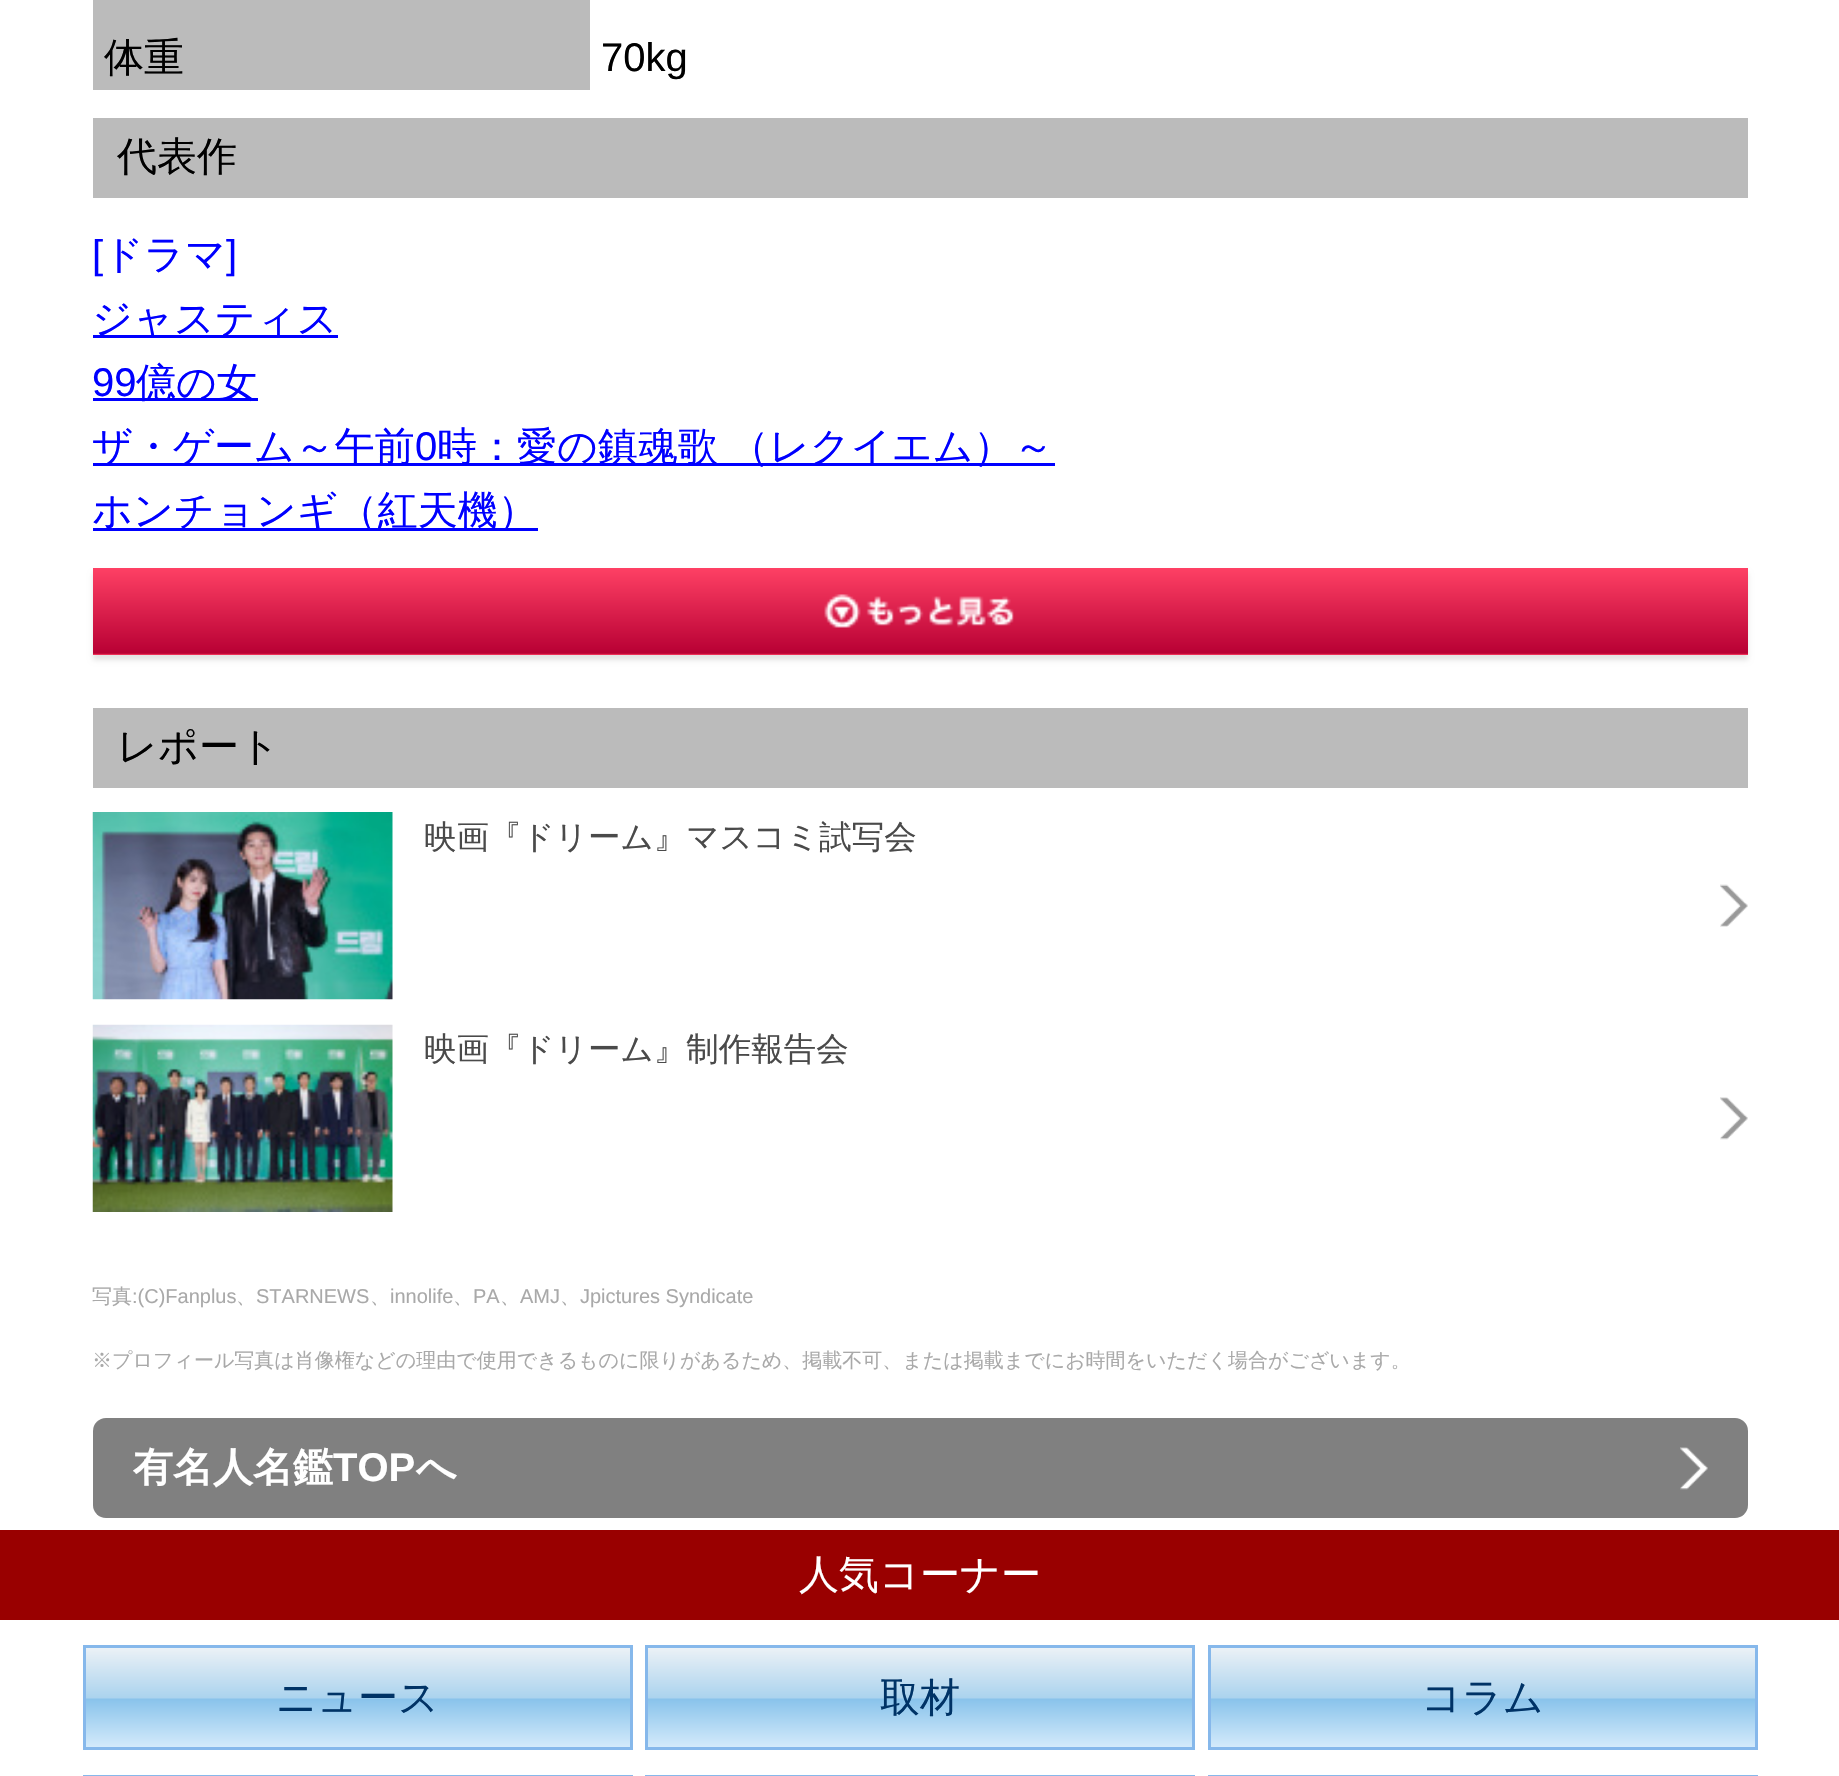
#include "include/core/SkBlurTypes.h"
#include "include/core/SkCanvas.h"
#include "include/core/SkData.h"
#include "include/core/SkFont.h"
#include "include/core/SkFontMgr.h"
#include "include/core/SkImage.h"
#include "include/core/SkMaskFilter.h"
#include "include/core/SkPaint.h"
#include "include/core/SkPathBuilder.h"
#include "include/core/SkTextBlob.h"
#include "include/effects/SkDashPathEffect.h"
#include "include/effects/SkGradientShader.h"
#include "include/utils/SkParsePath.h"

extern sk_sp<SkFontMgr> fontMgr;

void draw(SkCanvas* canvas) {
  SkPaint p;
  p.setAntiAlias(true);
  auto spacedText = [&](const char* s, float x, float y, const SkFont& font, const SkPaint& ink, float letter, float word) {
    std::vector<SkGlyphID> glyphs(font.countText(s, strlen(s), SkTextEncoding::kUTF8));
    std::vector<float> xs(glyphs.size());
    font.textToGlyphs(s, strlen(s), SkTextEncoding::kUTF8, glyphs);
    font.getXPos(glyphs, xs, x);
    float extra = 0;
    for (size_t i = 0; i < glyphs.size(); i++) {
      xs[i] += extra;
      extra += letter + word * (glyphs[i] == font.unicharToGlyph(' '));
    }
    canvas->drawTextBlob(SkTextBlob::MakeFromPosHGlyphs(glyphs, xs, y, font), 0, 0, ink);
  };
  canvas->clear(SK_ColorWHITE);
  p.setColor(SkColorSetRGB(187, 187, 187));
  canvas->drawRect(SkRect::MakeLTRB(93, 0, 590, 90), p);
  canvas->drawRect(SkRect::MakeLTRB(93, 118, 1748, 198), p);
  p.setColor(SkColorSetRGB(0, 0, 255));
  canvas->drawRect(SkRect::MakeLTRB(93, 335, 338, 338), p);
  canvas->drawRect(SkRect::MakeLTRB(93, 398, 258, 401), p);
  canvas->drawRect(SkRect::MakeLTRB(93, 463, 1055, 466), p);
  canvas->drawRect(SkRect::MakeLTRB(93, 528, 538, 531), p);
  p.setColor(SkColorSetRGB(227, 227, 227));
  p.setMaskFilter(SkMaskFilter::MakeBlur(kNormal_SkBlurStyle, 2.5f));
  canvas->drawRect(SkRect::MakeLTRB(93, 573, 1748, 660), p);
  p.setMaskFilter(nullptr);
  {
    const SkColor colors[] = {SkColorSetRGB(255, 65, 101), SkColorSetRGB(184, 0, 52), SkColorSetRGB(255, 65, 101)};
    const float stops[] = {0, 0.98f, 1};
    const SkPoint ends[] = {{920, 567}, {920, 655}};
    p.setShader(SkGradientShader::MakeLinear(ends, colors, stops, 3, SkTileMode::kClamp));
    p.setAlpha(255);
  }
  canvas->drawRect(SkRect::MakeLTRB(93, 568, 1748, 655), p);
  canvas->drawImageRect(SkImages::DeferredFromEncodedData(SkData::MakeFromFileName("images/1.png")), SkRect::MakeLTRB(824, 594, 1014, 628), SkSamplingOptions());
  p.setShader(nullptr);
  p.setColor(SkColorSetRGB(187, 187, 187));
  canvas->drawRect(SkRect::MakeLTRB(93, 708, 1748, 788), p);
  canvas->drawImageRect(SkImages::DeferredFromEncodedData(SkData::MakeFromFileName("images/2.png")), SkRect::MakeLTRB(1720, 884, 1748, 927), SkSamplingOptions());
  canvas->drawImageRect(SkImages::DeferredFromEncodedData(SkData::MakeFromFileName("images/3.png")), SkRect::MakeLTRB(92, 812, 393, 1000), SkSamplingOptions());
  canvas->drawImageRect(SkImages::DeferredFromEncodedData(SkData::MakeFromFileName("images/4.png")), SkRect::MakeLTRB(1720, 1097, 1748, 1140), SkSamplingOptions());
  canvas->drawImageRect(SkImages::DeferredFromEncodedData(SkData::MakeFromFileName("images/5.png")), SkRect::MakeLTRB(92, 1024, 393, 1212), SkSamplingOptions());
  p.setColor(SkColorSetRGB(128, 128, 128));
  canvas->drawRoundRect(SkRect::MakeLTRB(93, 1418, 1748, 1518), 13, 13, p);
  canvas->drawImageRect(SkImages::DeferredFromEncodedData(SkData::MakeFromFileName("images/6.png")), SkRect::MakeLTRB(1680, 1447, 1708, 1490), SkSamplingOptions());
  p.setColor(SkColorSetRGB(153, 0, 0));
  canvas->drawRect(SkRect::MakeLTRB(0, 1530, 1839, 1620), p);
  {
    const SkColor colors[] = {SkColorSetRGB(235, 241, 246), SkColorSetRGB(171, 211, 238), SkColorSetRGB(137, 195, 235), SkColorSetRGB(213, 235, 251)};
    const float stops[] = {0, 0.5f, 0.51f, 1};
    const SkPoint ends[] = {{358, 1648}, {358, 1748}};
    p.setShader(SkGradientShader::MakeLinear(ends, colors, stops, 4, SkTileMode::kClamp));
    p.setAlpha(255);
  }
  canvas->drawRect(SkRect::MakeLTRB(86, 1648, 630, 1747), p);
  p.setStyle(SkPaint::kStroke_Style);
  p.setStrokeWidth(3);
  p.setShader(nullptr);
  p.setColor(SkColorSetRGB(134, 184, 235));
  canvas->drawRect(SkRect::MakeLTRB(84.5f, 1646.5f, 631.5f, 1748.5f), p);
  p.setStyle(SkPaint::kFill_Style);
  {
    const SkColor colors[] = {SkColorSetRGB(235, 241, 246), SkColorSetRGB(171, 211, 238), SkColorSetRGB(137, 195, 235), SkColorSetRGB(213, 235, 251)};
    const float stops[] = {0, 0.5f, 0.51f, 1};
    const SkPoint ends[] = {{920, 1648}, {920, 1748}};
    p.setShader(SkGradientShader::MakeLinear(ends, colors, stops, 4, SkTileMode::kClamp));
    p.setAlpha(255);
  }
  canvas->drawRect(SkRect::MakeLTRB(648, 1648, 1192, 1747), p);
  p.setStyle(SkPaint::kStroke_Style);
  p.setShader(nullptr);
  p.setColor(SkColorSetRGB(134, 184, 235));
  canvas->drawRect(SkRect::MakeLTRB(646.5f, 1646.5f, 1193.5f, 1748.5f), p);
  p.setStyle(SkPaint::kFill_Style);
  {
    const SkColor colors[] = {SkColorSetRGB(235, 241, 246), SkColorSetRGB(171, 211, 238), SkColorSetRGB(137, 195, 235), SkColorSetRGB(213, 235, 251)};
    const float stops[] = {0, 0.5f, 0.51f, 1};
    const SkPoint ends[] = {{1483, 1648}, {1483, 1748}};
    p.setShader(SkGradientShader::MakeLinear(ends, colors, stops, 4, SkTileMode::kClamp));
    p.setAlpha(255);
  }
  canvas->drawRect(SkRect::MakeLTRB(1211, 1648, 1755, 1747), p);
  p.setStyle(SkPaint::kStroke_Style);
  p.setShader(nullptr);
  p.setColor(SkColorSetRGB(134, 184, 235));
  canvas->drawRect(SkRect::MakeLTRB(1209.5f, 1646.5f, 1756.5f, 1748.5f), p);
  canvas->drawRect(SkRect::MakeLTRB(84.5f, 1776.5f, 631.5f, 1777.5f), p);
  canvas->drawRect(SkRect::MakeLTRB(646.5f, 1776.5f, 1193.5f, 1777.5f), p);
  canvas->drawRect(SkRect::MakeLTRB(1209.5f, 1776.5f, 1756.5f, 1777.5f), p);
  SkFont font1(fontMgr->matchFamilyStyle("WenQuanYi Zen Hei", SkFontStyle(500, SkFontStyle::kNormal_Width, SkFontStyle::kUpright_Slant)), 40);
  font1.setSubpixel(true);
  p.setStyle(SkPaint::kFill_Style);
  p.setColor(SK_ColorBLACK);
  canvas->drawString("体重", 104, 71, font1, p);
  SkFont font2(fontMgr->matchFamilyStyle("Liberation Sans", SkFontStyle::Normal()), 40);
  font2.setSubpixel(true);
  canvas->drawString("70kg", 601, 71, font2, p);
  canvas->drawString("代表作", 117, 170, font1, p);
  p.setColor(SkColorSetRGB(0, 0, 255));
  canvas->drawString("[", 92, 268, font2, p);
  canvas->drawString("ドラマ", 103, 268, font1, p);
  canvas->drawString("]", 226, 268, font2, p);
  canvas->drawString("ジャスティス", 92, 332, font1, p);
  canvas->drawString("99", 92, 396, font2, p);
  canvas->drawString("億の女", 136, 396, font1, p);
  canvas->drawString("ザ・ゲーム～午前", 92, 460, font1, p);
  canvas->drawString("0", 415, 460, font2, p);
  spacedText("時：愛の鎮魂歌 （レクイエム）～", 437, 460, font1, p, 0, -1);
  canvas->drawString("ホンチョンギ（紅天機）", 92, 524, font1, p);
  p.setColor(SK_ColorBLACK);
  canvas->drawString("レポート", 117, 760, font1, p);
  SkFont font3(fontMgr->matchFamilyStyle("WenQuanYi Zen Hei", SkFontStyle(500, SkFontStyle::kNormal_Width, SkFontStyle::kUpright_Slant)), 32.5f);
  font3.setSubpixel(true);
  p.setColor(SkColorSetRGB(74, 74, 74));
  canvas->drawString("映画『ドリーム』マスコミ試写会", 424, 848, font3, p);
  canvas->drawString("映画『ドリーム』制作報告会", 424, 1060, font3, p);
  SkFont font4(fontMgr->matchFamilyStyle("WenQuanYi Zen Hei", SkFontStyle(500, SkFontStyle::kNormal_Width, SkFontStyle::kUpright_Slant)), 20);
  font4.setSubpixel(true);
  p.setColor(SkColorSetRGB(169, 169, 169));
  canvas->drawString("写真", 92, 1303, font4, p);
  SkFont font5(fontMgr->matchFamilyStyle("Liberation Sans", SkFontStyle::Normal()), 20);
  font5.setSubpixel(true);
  canvas->drawString(":(C)Fanplus", 132, 1303, font5, p);
  canvas->drawString("、", 236, 1303, font4, p);
  canvas->drawString("STARNEWS", 256, 1303, font5, p);
  canvas->drawString("、", 370, 1303, font4, p);
  canvas->drawString("innolife", 390, 1303, font5, p);
  canvas->drawString("、", 453, 1303, font4, p);
  canvas->drawString("PA", 473, 1303, font5, p);
  canvas->drawString("、", 500, 1303, font4, p);
  canvas->drawString("AMJ", 520, 1303, font5, p);
  canvas->drawString("、", 560, 1303, font4, p);
  canvas->drawString("Jpictures Syndicate", 580, 1303, font5, p);
  canvas->drawString("※プロフィール写真は肖像権などの理由で使用できるものに限りがあるため、掲載不可、または掲載までにお時間をいただく場合がございます。", 92, 1367, font4, p);
  SkFont font6(fontMgr->matchFamilyStyle("WenQuanYi Zen Hei", SkFontStyle::Bold()), 40);
  font6.setSubpixel(true);
  p.setColor(SK_ColorWHITE);
  canvas->drawString("有名人名鑑", 133, 1481, font6, p);
  SkFont font7(fontMgr->matchFamilyStyle("Liberation Sans", SkFontStyle::Bold()), 40);
  font7.setSubpixel(true);
  canvas->drawString("TOP", 333, 1481, font7, p);
  canvas->drawString("へ", 416, 1481, font6, p);
  canvas->drawString("人気コーナー", 799, 1588, font1, p);
  p.setColor(SkColorSetRGB(0, 51, 102));
  canvas->drawString("ニュース", 276, 1711, font1, p);
  canvas->drawString("取材", 880, 1711, font1, p);
  canvas->drawString("コラム", 1421, 1711, font1, p);
}
